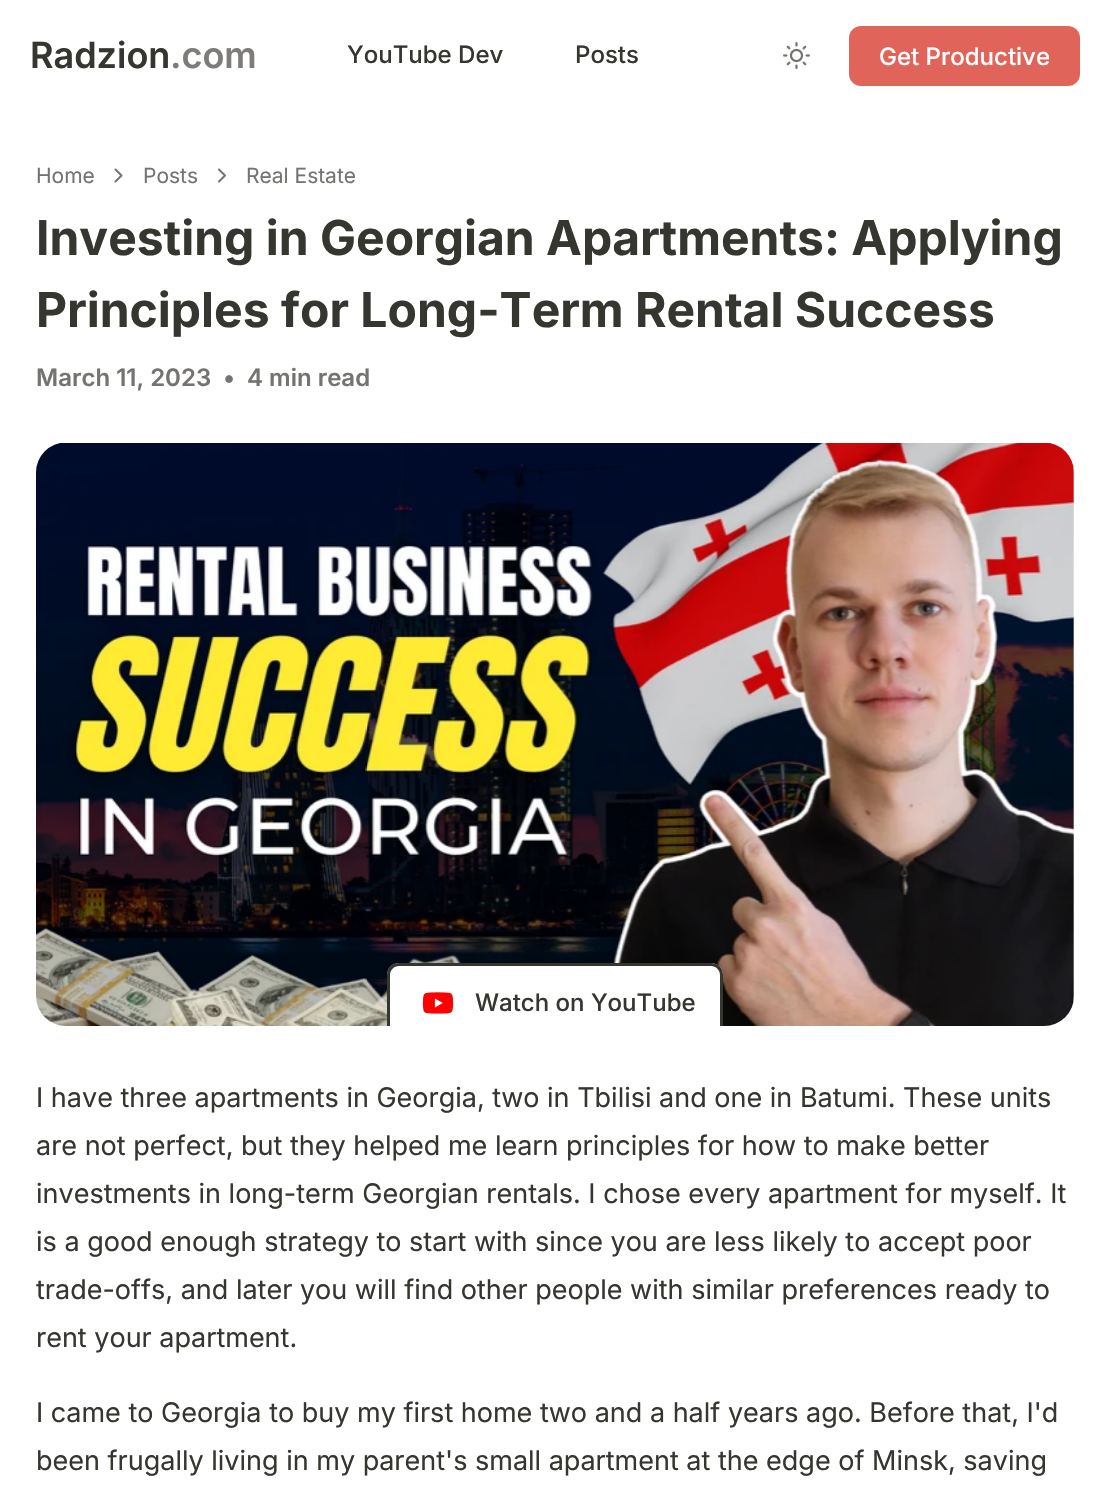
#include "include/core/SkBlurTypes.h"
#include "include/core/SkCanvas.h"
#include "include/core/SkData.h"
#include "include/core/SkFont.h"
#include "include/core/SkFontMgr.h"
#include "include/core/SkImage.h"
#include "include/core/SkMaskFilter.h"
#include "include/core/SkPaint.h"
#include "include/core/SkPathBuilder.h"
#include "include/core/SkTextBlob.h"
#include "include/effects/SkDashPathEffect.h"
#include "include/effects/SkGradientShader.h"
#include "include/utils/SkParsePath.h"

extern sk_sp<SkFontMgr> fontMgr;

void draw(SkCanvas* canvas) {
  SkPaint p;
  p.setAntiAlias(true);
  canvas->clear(SK_ColorWHITE);
  canvas->drawImageRect(SkImages::DeferredFromEncodedData(SkData::MakeFromFileName("images/1.png")), SkRect::MakeLTRB(783, 42, 810, 69), SkSamplingOptions());
  p.setColor(SkColorSetRGB(225, 100, 91));
  canvas->drawRoundRect(SkRect::MakeLTRB(849, 26, 1080, 86), 12, 12, p);
  p.setStyle(SkPaint::kStroke_Style);
  p.setStrokeWidth(2);
  p.setStrokeCap(SkPaint::kRound_Cap);
  p.setStrokeJoin(SkPaint::kRound_Join);
  p.setColor(SkColorSetRGB(116, 115, 112));
  canvas->drawPath(SkPathBuilder().moveTo(115.5f, 181.5f).lineTo(121.5f, 175.5f).lineTo(115.5f, 169.5f).detach(), p);
  canvas->drawPath(SkPathBuilder().moveTo(219, 181.5f).lineTo(225, 175.5f).lineTo(219, 169.5f).detach(), p);
  canvas->drawImageRect(SkImages::DeferredFromEncodedData(SkData::MakeFromFileName("images/2.png")), SkRect::MakeLTRB(36, 443, 1074, 1026), SkSamplingOptions());
  p.setStyle(SkPaint::kFill_Style);
  p.setColor(SK_ColorWHITE);
  canvas->drawPath(SkPathBuilder().moveTo(399, 963).lineTo(711, 963).cubicTo(717.5f, 963, 723, 968.5f, 723, 975).lineTo(723, 1026).lineTo(387, 1026).lineTo(387, 975).cubicTo(387, 968.5f, 392.5f, 963, 399, 963).close().detach(), p);
  p.setColor(SkColorSetRGB(54, 54, 48));
  canvas->drawPath(SkPathBuilder(SkPathFillType::kEvenOdd).moveTo(399, 963).lineTo(711, 963).cubicTo(718, 963, 723, 968, 723, 975).lineTo(723, 1026).lineTo(387, 1026).lineTo(387, 975).cubicTo(387, 968, 392, 963, 399, 963).close().moveTo(399, 966).lineTo(711, 966).cubicTo(716, 966, 720, 970, 720, 975).lineTo(720, 1026).lineTo(390, 1026).lineTo(390, 975).cubicTo(390, 970, 394, 966, 399, 966).close().detach(), p);
  canvas->drawImageRect(SkImages::DeferredFromEncodedData(SkData::MakeFromFileName("images/3.png")), SkRect::MakeLTRB(422, 992, 454, 1014), SkSamplingOptions());
  SkFont font1(fontMgr->matchFamilyStyle("Inter", SkFontStyle(600, SkFontStyle::kNormal_Width, SkFontStyle::kUpright_Slant)), 36);
  font1.setSubpixel(true);
  canvas->drawString("Radzion", 30, 68, font1, p);
  p.setColor(SkColorSetRGB(125, 124, 120));
  canvas->drawString(".com", 170, 68, font1, p);
  SkFont font2(fontMgr->matchFamilyStyle("Inter", SkFontStyle(500, SkFontStyle::kNormal_Width, SkFontStyle::kUpright_Slant)), 24);
  font2.setSubpixel(true);
  p.setColor(SkColorSetRGB(54, 54, 48));
  canvas->drawString("YouTube Dev", 347, 63, font2, p);
  canvas->drawString("Posts", 575, 63, font2, p);
  p.setColor(SK_ColorWHITE);
  canvas->drawString("Get Productive", 879, 65, font2, p);
  SkFont font3(fontMgr->matchFamilyStyle("Inter", SkFontStyle::Normal()), 21);
  font3.setSubpixel(true);
  p.setColor(SkColorSetRGB(116, 115, 112));
  canvas->drawString("Home", 36, 183, font3, p);
  canvas->drawString("Posts", 143, 183, font3, p);
  canvas->drawString("Real Estate", 246, 183, font3, p);
  SkFont font4(fontMgr->matchFamilyStyle("Inter", SkFontStyle::Bold()), 48);
  font4.setSubpixel(true);
  p.setColor(SkColorSetRGB(54, 54, 48));
  canvas->drawString("Investing in Georgian Apartments: Applying", 36, 255, font4, p);
  canvas->drawString("Principles for Long-Term Rental Success", 36, 327, font4, p);
  SkFont font5(fontMgr->matchFamilyStyle("Inter", SkFontStyle(600, SkFontStyle::kNormal_Width, SkFontStyle::kUpright_Slant)), 24);
  font5.setSubpixel(true);
  p.setColor(SkColorSetRGB(116, 115, 112));
  canvas->drawString("March 11, 2023", 36, 386, font5, p);
  canvas->drawString("•", 223, 386, font5, p);
  canvas->drawString("4 min read", 247, 386, font5, p);
  p.setColor(SkColorSetRGB(54, 54, 48));
  canvas->drawString("Watch on YouTube", 475, 1011, font2, p);
  SkFont font6(fontMgr->matchFamilyStyle("Inter", SkFontStyle::Normal()), 27);
  font6.setSubpixel(true);
  canvas->drawString("I have three apartments in Georgia, two in Tbilisi and one in Batumi. These units", 36, 1107, font6, p);
  canvas->drawString("are not perfect, but they helped me learn principles for how to make better", 36, 1155, font6, p);
  canvas->drawString("investments in long-term Georgian rentals. I chose every apartment for myself. It", 36, 1203, font6, p);
  canvas->drawString("is a good enough strategy to start with since you are less likely to accept poor", 36, 1251, font6, p);
  canvas->drawString("trade-offs, and later you will find other people with similar preferences ready to", 36, 1299, font6, p);
  canvas->drawString("rent your apartment.", 36, 1347, font6, p);
  canvas->drawString("I came to Georgia to buy my first home two and a half years ago. Before that, I'd", 36, 1422, font6, p);
  canvas->drawString("been frugally living in my parent's small apartment at the edge of Minsk, saving", 36, 1470, font6, p);
}
